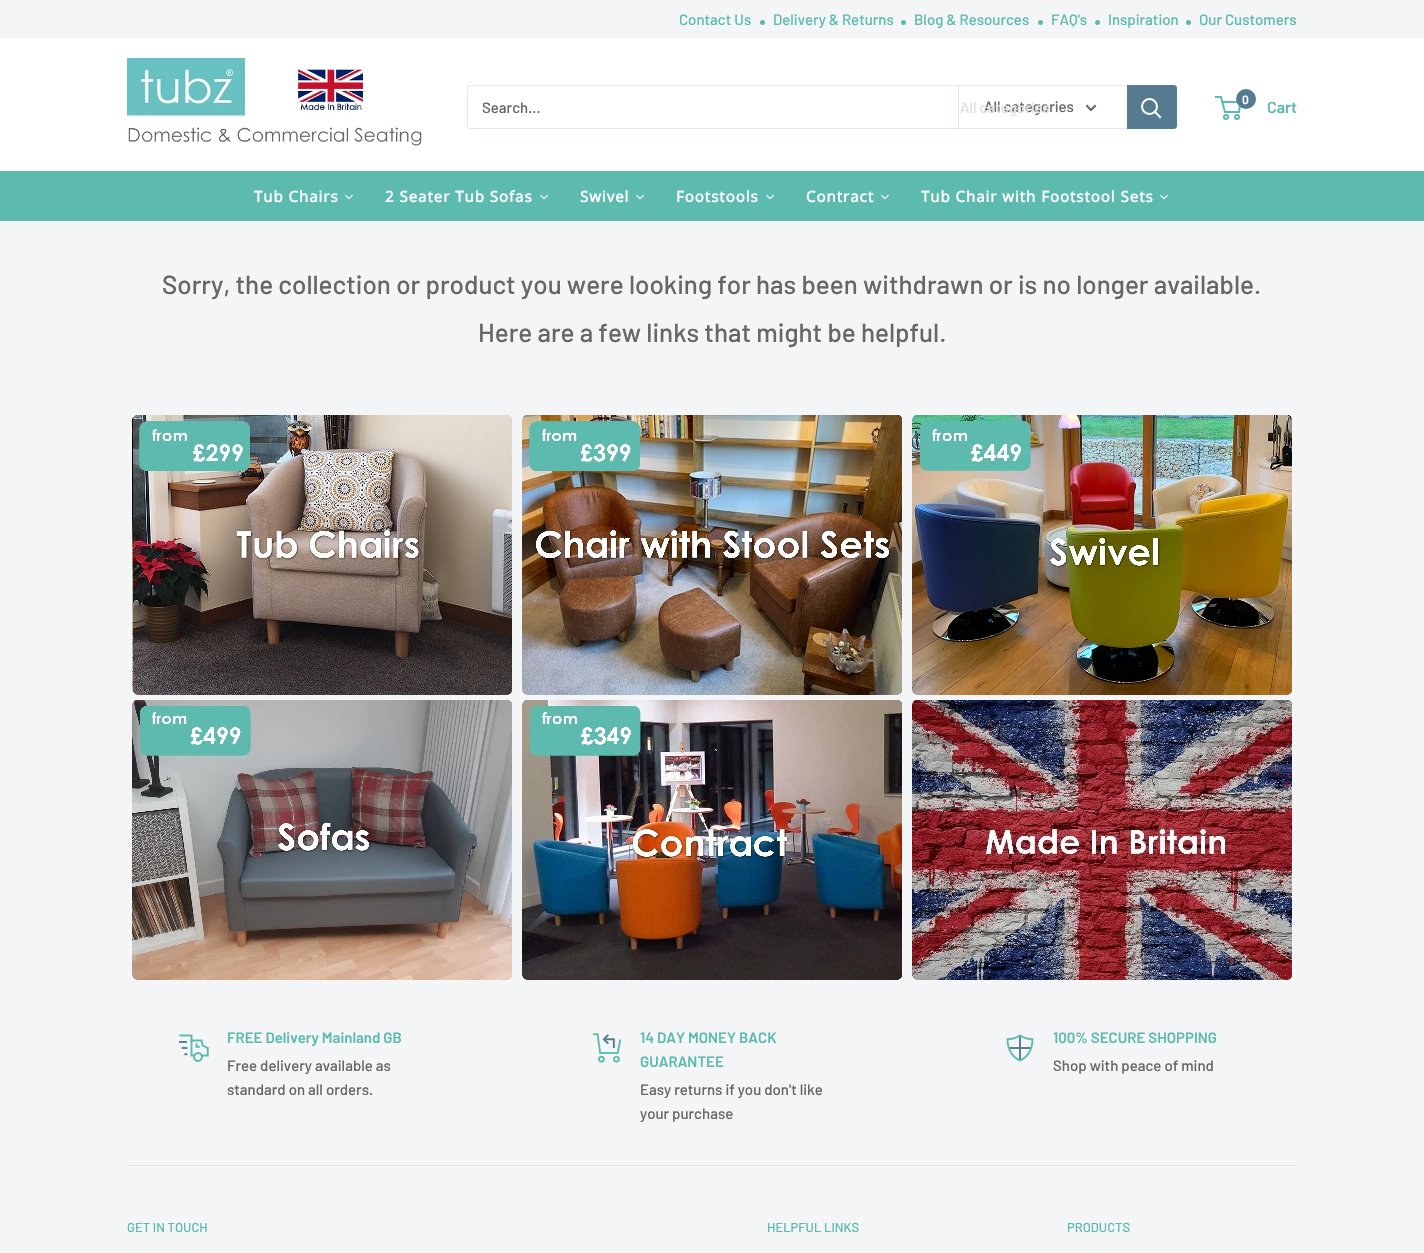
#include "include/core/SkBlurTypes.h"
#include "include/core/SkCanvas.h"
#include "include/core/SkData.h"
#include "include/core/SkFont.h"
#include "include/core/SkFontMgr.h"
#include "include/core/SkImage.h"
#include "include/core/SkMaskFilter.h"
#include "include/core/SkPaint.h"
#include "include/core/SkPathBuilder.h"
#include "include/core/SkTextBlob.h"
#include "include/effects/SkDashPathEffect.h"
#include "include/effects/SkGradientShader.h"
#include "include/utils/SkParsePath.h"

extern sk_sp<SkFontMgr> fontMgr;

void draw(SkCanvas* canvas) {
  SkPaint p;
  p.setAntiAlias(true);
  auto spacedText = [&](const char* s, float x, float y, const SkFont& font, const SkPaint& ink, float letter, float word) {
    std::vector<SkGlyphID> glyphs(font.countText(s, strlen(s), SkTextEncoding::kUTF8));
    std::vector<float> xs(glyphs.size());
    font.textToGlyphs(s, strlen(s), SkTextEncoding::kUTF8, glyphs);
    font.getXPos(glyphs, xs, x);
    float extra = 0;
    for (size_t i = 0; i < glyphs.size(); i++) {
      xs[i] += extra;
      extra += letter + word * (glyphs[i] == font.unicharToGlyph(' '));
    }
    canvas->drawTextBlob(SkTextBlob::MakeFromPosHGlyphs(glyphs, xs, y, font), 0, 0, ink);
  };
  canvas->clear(SkColorSetRGB(243, 245, 246));
  p.setColor(SkColorSetRGB(93, 186, 175));
  canvas->drawCircle(762.5f, 22.5f, 2.5f, p);
  canvas->drawCircle(903.5f, 22.5f, 2.5f, p);
  canvas->drawCircle(1040.5f, 22.5f, 2.5f, p);
  canvas->drawCircle(1097.5f, 22.5f, 2.5f, p);
  canvas->drawCircle(1188.5f, 22.5f, 2.5f, p);
  p.setColor(SK_ColorWHITE);
  canvas->drawRect(SkRect::MakeLTRB(0, 38, 1424, 171), p);
  canvas->drawImageRect(SkImages::DeferredFromEncodedData(SkData::MakeFromFileName("images/1.png")), SkRect::MakeLTRB(127, 58, 422, 146), SkSamplingOptions());
  p.setColor(SkColorSetRGB(227, 231, 250));
  canvas->drawPath(SkPathBuilder().moveTo(468, 128).cubicTo(468, 129, 469, 129, 470, 129).lineTo(1174, 129).cubicTo(1176, 129, 1177, 128, 1177, 126).lineTo(1177, 88).cubicTo(1177, 87, 1177, 86, 1176, 86).lineTo(1176, 119).cubicTo(1176, 121, 1178, 128, 1173, 128).close().detach(), p);
  canvas->drawPath(SkPathBuilder().moveTo(471, 86).lineTo(1176, 86).cubicTo(1176, 85, 1175, 85, 1174, 85).lineTo(470, 85).cubicTo(468, 85, 467, 86, 467, 88).lineTo(467, 126).cubicTo(467, 127, 467, 128, 468, 128).lineTo(468, 95).cubicTo(468, 93, 466, 86, 471, 86).close().detach(), p);
  p.setColor(SkColorSetARGB(77, 163, 175, 239));
  canvas->drawRect(SkRect::MakeLTRB(958, 85, 959, 129), p);
  p.setStyle(SkPaint::kStroke_Style);
  p.setStrokeWidth(2);
  p.setStrokeCap(SkPaint::kSquare_Cap);
  p.setColor(SkColorSetRGB(102, 102, 102));
  canvas->drawPath(SkPathBuilder().moveTo(1095, 106).lineTo(1091, 110).lineTo(1087, 106).detach(), p);
  p.setStyle(SkPaint::kFill_Style);
  p.setColor(SkColorSetRGB(85, 123, 145));
  canvas->drawPath(SkPathBuilder().moveTo(1127, 85).lineTo(1174, 85).cubicTo(1175.5f, 85, 1177, 86.5f, 1177, 88).lineTo(1177, 126).cubicTo(1177, 127.5f, 1175.5f, 129, 1174, 129).lineTo(1127, 129).close().detach(), p);
  p.setStyle(SkPaint::kStroke_Style);
  p.setColor(SK_ColorWHITE);
  canvas->drawPath(SkPathBuilder().moveTo(1160, 117).lineTo(1155, 112).detach(), p);
  p.setStrokeCap(SkPaint::kButt_Cap);
  canvas->drawCircle(1149.5f, 106.5f, 7.5f, p);
  p.setColor(SkColorSetRGB(93, 186, 175));
  canvas->drawCircle(1226, 117, 2, p);
  canvas->drawCircle(1237, 117, 2, p);
  canvas->drawPath(SkPathBuilder().moveTo(1222.5f, 102).lineTo(1240.5f, 102).lineTo(1239, 112).lineTo(1225, 112).lineTo(1221, 97).lineTo(1215, 97).detach(), p);
  p.setStyle(SkPaint::kFill_Style);
  p.setColor(SkColorSetRGB(85, 123, 145));
  canvas->drawCircle(1246, 99, 10, p);
  p.setColor(SkColorSetRGB(93, 186, 175));
  canvas->drawRect(SkRect::MakeLTRB(0, 171, 1424, 221), p);
  canvas->drawImageRect(SkImages::DeferredFromEncodedData(SkData::MakeFromFileName("images/2.png")), SkRect::MakeLTRB(345, 194, 353, 200), SkSamplingOptions());
  canvas->drawImageRect(SkImages::DeferredFromEncodedData(SkData::MakeFromFileName("images/2.png")), SkRect::MakeLTRB(540, 194, 548, 200), SkSamplingOptions());
  canvas->drawImageRect(SkImages::DeferredFromEncodedData(SkData::MakeFromFileName("images/2.png")), SkRect::MakeLTRB(636, 194, 644, 200), SkSamplingOptions());
  canvas->drawImageRect(SkImages::DeferredFromEncodedData(SkData::MakeFromFileName("images/2.png")), SkRect::MakeLTRB(766, 194, 774, 200), SkSamplingOptions());
  canvas->drawImageRect(SkImages::DeferredFromEncodedData(SkData::MakeFromFileName("images/2.png")), SkRect::MakeLTRB(881, 194, 889, 200), SkSamplingOptions());
  canvas->drawImageRect(SkImages::DeferredFromEncodedData(SkData::MakeFromFileName("images/2.png")), SkRect::MakeLTRB(1160, 194, 1168, 200), SkSamplingOptions());
  canvas->drawImageRect(SkImages::DeferredFromEncodedData(SkData::MakeFromFileName("images/3.png")), SkRect::MakeLTRB(132, 415, 512, 695), SkSamplingOptions());
  canvas->drawImageRect(SkImages::DeferredFromEncodedData(SkData::MakeFromFileName("images/4.png")), SkRect::MakeLTRB(522, 415, 902, 695), SkSamplingOptions());
  canvas->drawImageRect(SkImages::DeferredFromEncodedData(SkData::MakeFromFileName("images/5.png")), SkRect::MakeLTRB(912, 415, 1292, 695), SkSamplingOptions());
  canvas->drawImageRect(SkImages::DeferredFromEncodedData(SkData::MakeFromFileName("images/6.png")), SkRect::MakeLTRB(132, 700, 512, 980), SkSamplingOptions());
  canvas->drawImageRect(SkImages::DeferredFromEncodedData(SkData::MakeFromFileName("images/7.png")), SkRect::MakeLTRB(522, 700, 902, 980), SkSamplingOptions());
  canvas->drawImageRect(SkImages::DeferredFromEncodedData(SkData::MakeFromFileName("images/8.png")), SkRect::MakeLTRB(912, 700, 1292, 980), SkSamplingOptions());
  canvas->drawImageRect(SkImages::DeferredFromEncodedData(SkData::MakeFromFileName("images/9.png")), SkRect::MakeLTRB(179, 1034, 209, 1062), SkSamplingOptions());
  canvas->drawImageRect(SkImages::DeferredFromEncodedData(SkData::MakeFromFileName("images/10.png")), SkRect::MakeLTRB(592, 1033, 622, 1063), SkSamplingOptions());
  canvas->drawImageRect(SkImages::DeferredFromEncodedData(SkData::MakeFromFileName("images/11.png")), SkRect::MakeLTRB(1006, 1034, 1034, 1062), SkSamplingOptions());
  p.setColor(SkColorSetRGB(225, 227, 228));
  canvas->drawRect(SkRect::MakeLTRB(127, 1165, 1297, 1166), p);
  SkFont font1(fontMgr->matchFamilyStyle("Barlow", SkFontStyle(500, SkFontStyle::kNormal_Width, SkFontStyle::kUpright_Slant)), 15);
  font1.setSubpixel(true);
  p.setColor(SkColorSetRGB(93, 186, 175));
  canvas->drawString("Contact Us", 679, 25, font1, p);
  canvas->drawString("Delivery & Returns", 773, 25, font1, p);
  canvas->drawString("Blog & Resources", 914, 25, font1, p);
  canvas->drawString("FAQ's", 1051, 25, font1, p);
  canvas->drawString("Inspiration", 1108, 25, font1, p);
  canvas->drawString("Our Customers", 1199, 25, font1, p);
  p.setColor(SkColorSetRGB(102, 102, 102));
  canvas->drawString("Search...", 482, 113, font1, p);
  canvas->drawString("All categories", 984, 112, font1, p);
  p.setColor(SkColorSetRGB(224, 224, 224));
  canvas->drawString("All categories", 960, 113, font1, p);
  SkFont font2(fontMgr->matchFamilyStyle("Barlow", SkFontStyle(600, SkFontStyle::kNormal_Width, SkFontStyle::kUpright_Slant)), 12);
  font2.setSubpixel(true);
  p.setColor(SK_ColorWHITE);
  canvas->drawString("0", 1242, 104, font2, p);
  SkFont font3(fontMgr->matchFamilyStyle("Barlow", SkFontStyle(600, SkFontStyle::kNormal_Width, SkFontStyle::kUpright_Slant)), 16);
  font3.setSubpixel(true);
  p.setColor(SkColorSetRGB(93, 186, 175));
  canvas->drawString("Cart", 1267, 113, font3, p);
  SkFont font4(fontMgr->matchFamilyStyle("Open Sans", SkFontStyle::Bold()), 15);
  font4.setSubpixel(true);
  p.setColor(SK_ColorWHITE);
  spacedText("Tub Chairs", 254, 202, font4, p, 1, 0);
  spacedText("2 Seater Tub Sofas", 385, 202, font4, p, 1, 0);
  spacedText("Swivel", 580, 202, font4, p, 1, 0);
  spacedText("Footstools", 676, 202, font4, p, 1, 0);
  spacedText("Contract", 806, 202, font4, p, 1, 0);
  spacedText("Tub Chair with Footstool Sets", 921, 202, font4, p, 1, 0);
  SkFont font5(fontMgr->matchFamilyStyle("Barlow", SkFontStyle(500, SkFontStyle::kNormal_Width, SkFontStyle::kUpright_Slant)), 26);
  font5.setSubpixel(true);
  p.setColor(SkColorSetRGB(102, 102, 102));
  canvas->drawString("Sorry, the collection or product you were looking for has been withdrawn or is no longer available.", 162, 294, font5, p);
  canvas->drawString("Here are a few links that might be helpful.", 478, 342, font5, p);
  SkFont font6(fontMgr->matchFamilyStyle("Barlow", SkFontStyle(600, SkFontStyle::kNormal_Width, SkFontStyle::kUpright_Slant)), 15);
  font6.setSubpixel(true);
  p.setColor(SkColorSetRGB(93, 186, 175));
  canvas->drawString("FREE Delivery Mainland GB", 227, 1043, font6, p);
  p.setColor(SkColorSetRGB(102, 102, 102));
  canvas->drawString("Free delivery available as", 227, 1071, font1, p);
  canvas->drawString("standard on all orders.", 227, 1095, font1, p);
  p.setColor(SkColorSetRGB(93, 186, 175));
  canvas->drawString("14 DAY MONEY BACK", 640, 1043, font6, p);
  canvas->drawString("GUARANTEE", 640, 1067, font6, p);
  p.setColor(SkColorSetRGB(102, 102, 102));
  canvas->drawString("Easy returns if you don't like", 640, 1095, font1, p);
  canvas->drawString("your purchase", 640, 1119, font1, p);
  p.setColor(SkColorSetRGB(93, 186, 175));
  canvas->drawString("100% SECURE SHOPPING", 1053, 1043, font6, p);
  p.setColor(SkColorSetRGB(102, 102, 102));
  canvas->drawString("Shop with peace of mind", 1053, 1071, font1, p);
  SkFont font7(fontMgr->matchFamilyStyle("Barlow", SkFontStyle(500, SkFontStyle::kNormal_Width, SkFontStyle::kUpright_Slant)), 13);
  font7.setSubpixel(true);
  p.setColor(SkColorSetRGB(93, 186, 175));
  canvas->drawString("GET IN TOUCH", 127, 1232, font7, p);
  canvas->drawString("HELPFUL LINKS", 767, 1232, font7, p);
  canvas->drawString("PRODUCTS", 1067, 1232, font7, p);
}
